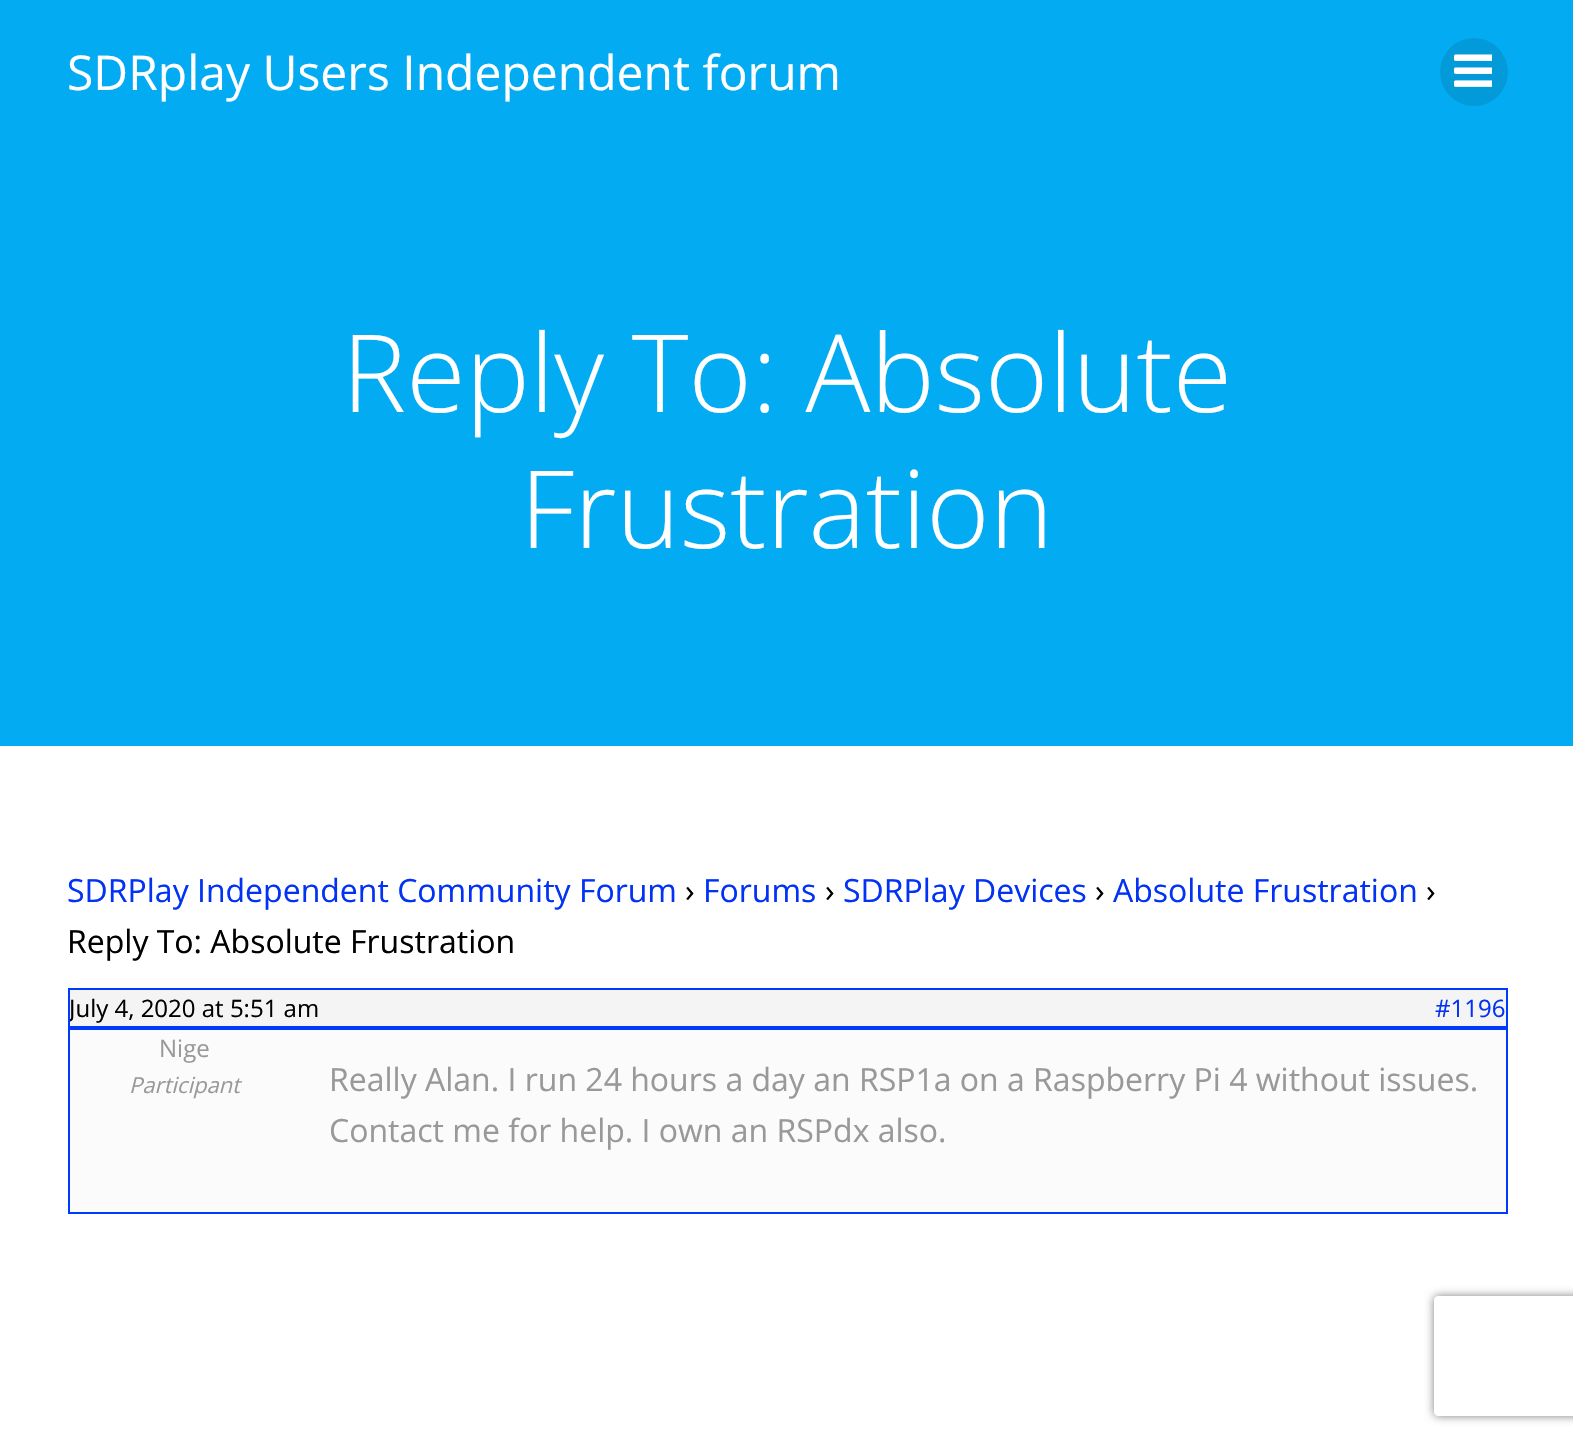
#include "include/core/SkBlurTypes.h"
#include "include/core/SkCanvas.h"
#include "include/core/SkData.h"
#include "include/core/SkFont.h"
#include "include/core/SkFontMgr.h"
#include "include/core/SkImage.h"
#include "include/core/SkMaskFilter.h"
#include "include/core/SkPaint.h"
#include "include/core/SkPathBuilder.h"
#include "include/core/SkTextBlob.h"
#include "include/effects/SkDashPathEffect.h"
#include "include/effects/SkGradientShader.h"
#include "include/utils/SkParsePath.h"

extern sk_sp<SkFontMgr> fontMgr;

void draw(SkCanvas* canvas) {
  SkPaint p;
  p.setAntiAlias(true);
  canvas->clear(SK_ColorWHITE);
  p.setColor(SkColorSetRGB(3, 171, 242));
  canvas->drawRect(SkRect::MakeLTRB(0, 0, 1573, 746), p);
  p.setColor(SkColorSetRGB(3, 154, 218));
  canvas->drawCircle(1474, 72, 34, p);
  canvas->drawImageRect(SkImages::DeferredFromEncodedData(SkData::MakeFromFileName("images/1.png")), SkRect::MakeLTRB(1454, 54, 1492, 87), SkSamplingOptions());
  p.setColor(SkColorSetRGB(244, 244, 244));
  canvas->drawRect(SkRect::MakeLTRB(69, 989, 1507, 1027), p);
  p.setStyle(SkPaint::kStroke_Style);
  p.setStrokeWidth(2);
  p.setColor(SkColorSetRGB(0, 58, 252));
  canvas->drawRect(SkRect::MakeLTRB(69, 989, 1507, 1027), p);
  p.setStyle(SkPaint::kFill_Style);
  p.setColor(SkColorSetRGB(251, 251, 251));
  canvas->drawRect(SkRect::MakeLTRB(69, 1029, 1507, 1213), p);
  p.setStyle(SkPaint::kStroke_Style);
  p.setColor(SkColorSetRGB(0, 58, 252));
  canvas->drawRect(SkRect::MakeLTRB(69, 1029, 1507, 1213), p);
  canvas->save();
  canvas->clipPath(SkPathBuilder(SkPathFillType::kEvenOdd).moveTo(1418, 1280).lineTo(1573, 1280).lineTo(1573, 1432).lineTo(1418, 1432).close().moveTo(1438, 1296).lineTo(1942, 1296).cubicTo(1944, 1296, 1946, 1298, 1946, 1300).lineTo(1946, 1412).cubicTo(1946, 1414, 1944, 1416, 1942, 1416).lineTo(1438, 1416).cubicTo(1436, 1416, 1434, 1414, 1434, 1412).lineTo(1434, 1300).cubicTo(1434, 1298, 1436, 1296, 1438, 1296).close().detach(), true);
  p.setStyle(SkPaint::kFill_Style);
  p.setColor(SkColorSetRGB(128, 128, 128));
  p.setMaskFilter(SkMaskFilter::MakeBlur(kNormal_SkBlurStyle, 5));
  canvas->drawRoundRect(SkRect::MakeLTRB(1434, 1296, 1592, 1416), 4, 4, p);
  p.setMaskFilter(nullptr);
  canvas->restore();
  SkFont font1(fontMgr->matchFamilyStyle("Open Sans", SkFontStyle::Normal()), 48);
  font1.setSubpixel(true);
  p.setColor(SK_ColorWHITE);
  canvas->drawString("SDRplay Users Independent forum", 67, 90, font1, p);
  SkFont font2(fontMgr->matchFamilyStyle("Open Sans", SkFontStyle(300, SkFontStyle::kNormal_Width, SkFontStyle::kUpright_Slant)), 108);
  font2.setSubpixel(true);
  canvas->drawString("Reply To: Absolute", 342, 412, font2, p);
  canvas->drawString("Frustration", 520, 548, font2, p);
  SkFont font3(fontMgr->matchFamilyStyle("Open Sans", SkFontStyle::Normal()), 32);
  font3.setSubpixel(true);
  p.setColor(SkColorSetRGB(2, 50, 244));
  canvas->drawString("SDRPlay Independent Community Forum", 67, 902, font3, p);
  p.setColor(SK_ColorBLACK);
  canvas->drawString("›", 685, 902, font3, p);
  p.setColor(SkColorSetRGB(2, 50, 244));
  canvas->drawString("Forums", 703, 902, font3, p);
  p.setColor(SK_ColorBLACK);
  canvas->drawString("›", 825, 902, font3, p);
  p.setColor(SkColorSetRGB(2, 50, 244));
  canvas->drawString("SDRPlay Devices", 843, 902, font3, p);
  p.setColor(SK_ColorBLACK);
  canvas->drawString("›", 1095, 902, font3, p);
  p.setColor(SkColorSetRGB(2, 50, 244));
  canvas->drawString("Absolute Frustration", 1113, 902, font3, p);
  p.setColor(SK_ColorBLACK);
  canvas->drawString("›", 1426, 902, font3, p);
  canvas->drawString("Reply To: Absolute Frustration", 67, 953, font3, p);
  canvas->save();
  canvas->clipRect(SkRect::MakeLTRB(70, 990, 1506, 1026));
  SkFont font4(fontMgr->matchFamilyStyle("Open Sans", SkFontStyle::Normal()), 24);
  font4.setSubpixel(true);
  canvas->drawString("July 4, 2020 at 5:51 am", 69, 1017, font4, p);
  canvas->restore();
  p.setColor(SkColorSetRGB(2, 50, 244));
  canvas->drawString("#1196", 1435, 1017, font4, p);
  p.setColor(SkColorSetRGB(153, 153, 153));
  canvas->drawString("Nige", 159, 1057, font4, p);
  SkFont font5(fontMgr->matchFamilyStyle("Open Sans", SkFontStyle::Italic()), 22);
  font5.setSubpixel(true);
  canvas->drawString("Participant", 129, 1093, font5, p);
  canvas->drawString("Really Alan. I run 24 hours a day an RSP1a on a Raspberry Pi 4 without issues.", 329, 1091, font3, p);
  canvas->drawString("Contact me for help. I own an RSPdx also.", 329, 1142, font3, p);
}
